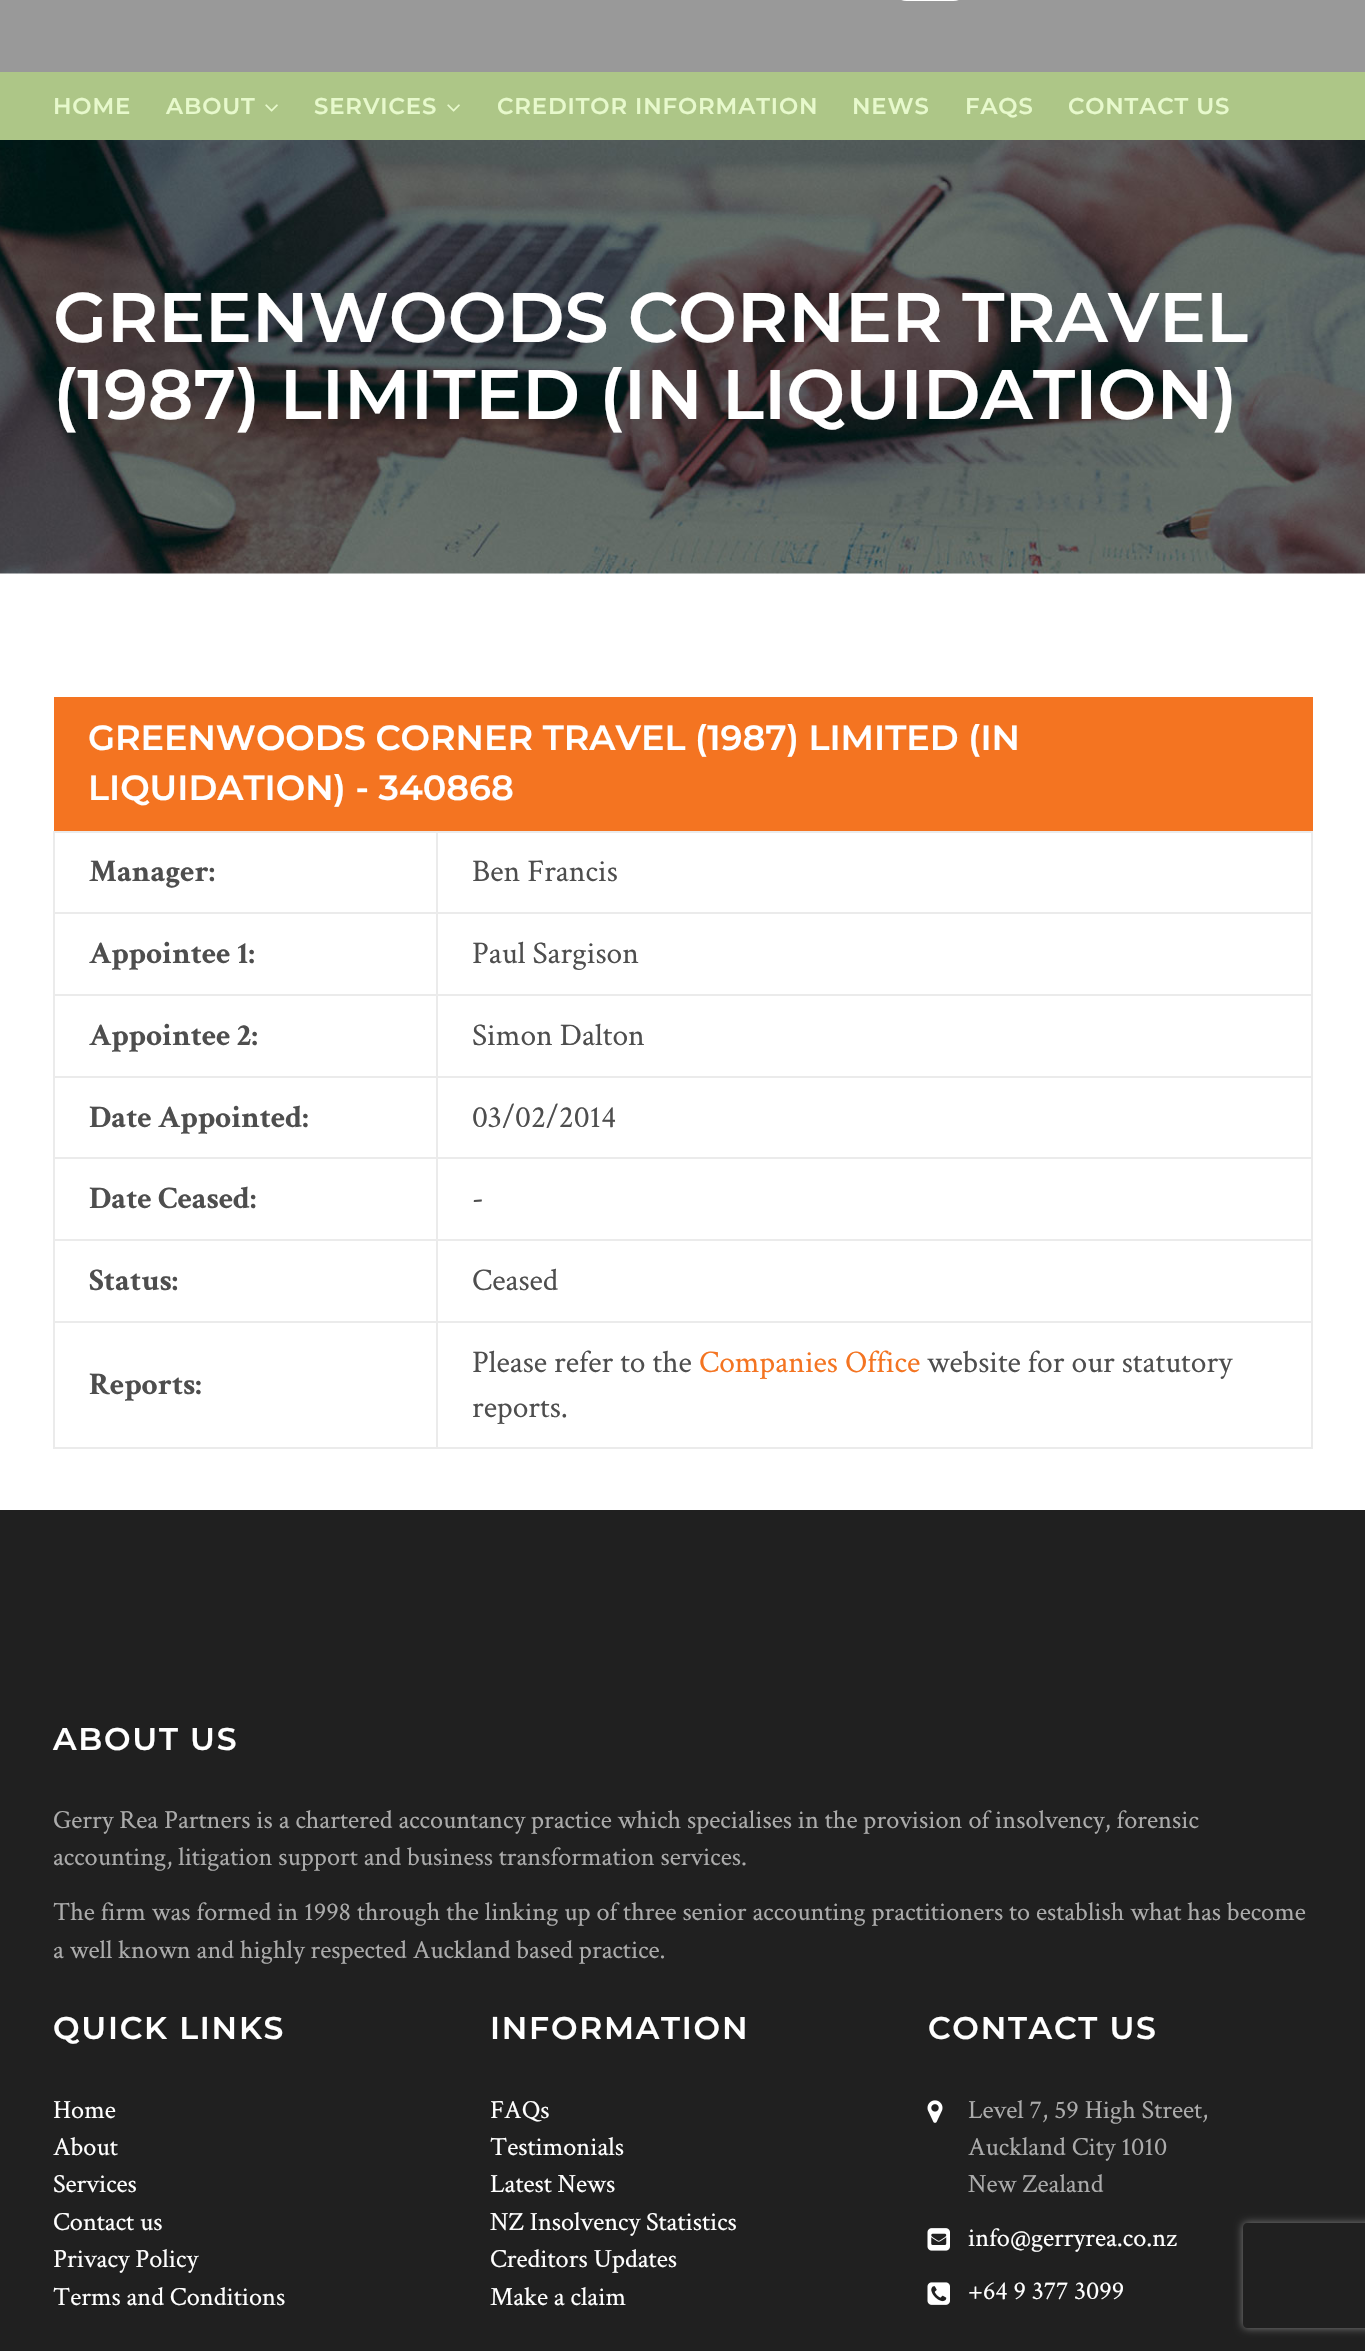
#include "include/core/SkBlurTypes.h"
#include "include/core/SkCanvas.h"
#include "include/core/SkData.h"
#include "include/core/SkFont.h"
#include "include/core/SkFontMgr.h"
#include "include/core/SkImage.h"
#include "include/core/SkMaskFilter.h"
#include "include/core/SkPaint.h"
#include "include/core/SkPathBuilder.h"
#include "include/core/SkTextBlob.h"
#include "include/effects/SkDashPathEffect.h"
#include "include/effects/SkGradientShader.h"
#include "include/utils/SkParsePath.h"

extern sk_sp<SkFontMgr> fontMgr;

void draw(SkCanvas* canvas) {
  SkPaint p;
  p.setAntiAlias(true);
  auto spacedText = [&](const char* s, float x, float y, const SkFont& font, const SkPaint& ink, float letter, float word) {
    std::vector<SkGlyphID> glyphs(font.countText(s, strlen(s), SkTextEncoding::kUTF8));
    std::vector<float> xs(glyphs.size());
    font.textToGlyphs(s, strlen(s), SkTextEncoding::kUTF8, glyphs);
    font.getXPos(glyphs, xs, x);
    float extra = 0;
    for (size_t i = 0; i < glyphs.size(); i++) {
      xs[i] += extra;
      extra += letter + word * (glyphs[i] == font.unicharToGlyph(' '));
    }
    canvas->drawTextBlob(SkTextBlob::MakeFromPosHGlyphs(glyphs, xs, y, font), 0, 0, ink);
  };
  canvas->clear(SK_ColorWHITE);
  p.setColor(SkColorSetRGB(153, 153, 153));
  canvas->drawRect(SkRect::MakeLTRB(0, 0, 1365, 72), p);
  canvas->drawImageRect(SkImages::DeferredFromEncodedData(SkData::MakeFromFileName("images/1.png")), SkRect::MakeLTRB(901, 0, 959, 1), SkSamplingOptions());
  p.setColor(SkColorSetRGB(173, 198, 135));
  canvas->drawRect(SkRect::MakeLTRB(0, 72, 1365, 140), p);
  canvas->drawImageRect(SkImages::DeferredFromEncodedData(SkData::MakeFromFileName("images/2.png")), SkRect::MakeLTRB(265, 104, 278, 112), SkSamplingOptions());
  canvas->drawImageRect(SkImages::DeferredFromEncodedData(SkData::MakeFromFileName("images/2.png")), SkRect::MakeLTRB(447, 104, 460, 112), SkSamplingOptions());
  canvas->drawImageRect(SkImages::DeferredFromEncodedData(SkData::MakeFromFileName("images/3.png")), SkRect::MakeLTRB(0, 140, 1365, 574), SkSamplingOptions());
  p.setColor(SkColorSetRGB(244, 116, 33));
  canvas->drawRect(SkRect::MakeLTRB(54, 697, 1313, 831), p);
  p.setColor(SkColorSetRGB(235, 235, 235));
  canvas->drawRect(SkRect::MakeLTRB(436, 831, 1313, 833), p);
  canvas->drawRect(SkRect::MakeLTRB(436, 912, 1313, 914), p);
  canvas->drawRect(SkRect::MakeLTRB(436, 994, 1313, 996), p);
  canvas->drawRect(SkRect::MakeLTRB(436, 1076, 1313, 1078), p);
  canvas->drawRect(SkRect::MakeLTRB(436, 1157, 1313, 1159), p);
  canvas->drawRect(SkRect::MakeLTRB(436, 1239, 1313, 1241), p);
  canvas->drawRect(SkRect::MakeLTRB(436, 1321, 1313, 1323), p);
  canvas->drawRect(SkRect::MakeLTRB(1311, 1321, 1313, 1449), p);
  canvas->drawRect(SkRect::MakeLTRB(436, 1447, 1313, 1449), p);
  canvas->drawRect(SkRect::MakeLTRB(436, 1321, 438, 1449), p);
  canvas->drawRect(SkRect::MakeLTRB(53, 1321, 438, 1323), p);
  canvas->drawRect(SkRect::MakeLTRB(436, 1239, 438, 1323), p);
  canvas->drawRect(SkRect::MakeLTRB(53, 1239, 438, 1241), p);
  canvas->drawRect(SkRect::MakeLTRB(436, 1157, 438, 1241), p);
  canvas->drawRect(SkRect::MakeLTRB(53, 1157, 438, 1159), p);
  canvas->drawRect(SkRect::MakeLTRB(436, 1076, 438, 1159), p);
  canvas->drawRect(SkRect::MakeLTRB(53, 1076, 438, 1078), p);
  canvas->drawRect(SkRect::MakeLTRB(436, 994, 438, 1078), p);
  canvas->drawRect(SkRect::MakeLTRB(53, 994, 438, 996), p);
  canvas->drawRect(SkRect::MakeLTRB(436, 912, 438, 996), p);
  canvas->drawRect(SkRect::MakeLTRB(53, 912, 438, 914), p);
  canvas->drawRect(SkRect::MakeLTRB(436, 831, 438, 914), p);
  canvas->drawRect(SkRect::MakeLTRB(53, 831, 438, 833), p);
  canvas->drawRect(SkRect::MakeLTRB(53, 1447, 438, 1449), p);
  canvas->drawRect(SkRect::MakeLTRB(53, 1321, 55, 1449), p);
  canvas->drawRect(SkRect::MakeLTRB(53, 1239, 55, 1323), p);
  canvas->drawRect(SkRect::MakeLTRB(53, 1157, 55, 1241), p);
  canvas->drawRect(SkRect::MakeLTRB(53, 1076, 55, 1159), p);
  canvas->drawRect(SkRect::MakeLTRB(53, 994, 55, 1078), p);
  canvas->drawRect(SkRect::MakeLTRB(53, 912, 55, 996), p);
  canvas->drawRect(SkRect::MakeLTRB(53, 831, 55, 914), p);
  canvas->drawRect(SkRect::MakeLTRB(1311, 1239, 1313, 1323), p);
  canvas->drawRect(SkRect::MakeLTRB(1311, 1157, 1313, 1241), p);
  canvas->drawRect(SkRect::MakeLTRB(1311, 1076, 1313, 1159), p);
  canvas->drawRect(SkRect::MakeLTRB(1311, 994, 1313, 1078), p);
  canvas->drawRect(SkRect::MakeLTRB(1311, 912, 1313, 996), p);
  canvas->drawRect(SkRect::MakeLTRB(1311, 831, 1313, 914), p);
  p.setColor(SkColorSetRGB(32, 32, 32));
  canvas->drawRect(SkRect::MakeLTRB(0, 1510, 1365, 2351), p);
  canvas->drawImageRect(SkImages::DeferredFromEncodedData(SkData::MakeFromFileName("images/4.png")), SkRect::MakeLTRB(927, 2100, 943, 2123), SkSamplingOptions());
  canvas->drawImageRect(SkImages::DeferredFromEncodedData(SkData::MakeFromFileName("images/5.png")), SkRect::MakeLTRB(927, 2228, 950, 2251), SkSamplingOptions());
  canvas->drawImageRect(SkImages::DeferredFromEncodedData(SkData::MakeFromFileName("images/6.png")), SkRect::MakeLTRB(927, 2282, 950, 2305), SkSamplingOptions());
  canvas->save();
  canvas->clipPath(SkPathBuilder(SkPathFillType::kEvenOdd).moveTo(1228, 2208).lineTo(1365, 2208).lineTo(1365, 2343).lineTo(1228, 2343).close().moveTo(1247, 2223).lineTo(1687, 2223).cubicTo(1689, 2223, 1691, 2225, 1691, 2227).lineTo(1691, 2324).cubicTo(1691, 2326, 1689, 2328, 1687, 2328).lineTo(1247, 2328).cubicTo(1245, 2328, 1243, 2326, 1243, 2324).lineTo(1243, 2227).cubicTo(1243, 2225, 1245, 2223, 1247, 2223).close().detach(), true);
  p.setColor(SkColorSetRGB(128, 128, 128));
  p.setMaskFilter(SkMaskFilter::MakeBlur(kNormal_SkBlurStyle, 4.5f));
  canvas->drawRoundRect(SkRect::MakeLTRB(1243, 2223, 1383, 2328), 4, 4, p);
  p.setMaskFilter(nullptr);
  canvas->restore();
  SkFont font1(fontMgr->matchFamilyStyle("Montserrat", SkFontStyle(100, SkFontStyle::kNormal_Width, SkFontStyle::kUpright_Slant)), 22.75f);
  font1.setSubpixel(true);
  p.setColor(SkColorSetRGB(231, 249, 204));
  spacedText("HOME", 53, 114, font1, p, 0.9f, 0);
  spacedText("ABOUT", 166, 114, font1, p, 0.9f, 0);
  spacedText("SERVICES", 314, 114, font1, p, 0.9f, 0);
  spacedText("CREDITOR INFORMATION", 497, 114, font1, p, 0.9f, 0);
  spacedText("NEWS", 852, 114, font1, p, 0.9f, 0);
  spacedText("FAQS", 965, 114, font1, p, 0.9f, 0);
  spacedText("CONTACT US", 1068, 114, font1, p, 0.9f, 0);
  SkFont font2(fontMgr->matchFamilyStyle("Montserrat", SkFontStyle(100, SkFontStyle::kNormal_Width, SkFontStyle::kUpright_Slant)), 70);
  font2.setSubpixel(true);
  p.setColor(SK_ColorWHITE);
  canvas->drawString("GREENWOODS CORNER TRAVEL", 53, 342, font2, p);
  canvas->drawString("(1987) LIMITED (IN LIQUIDATION)", 53, 419, font2, p);
  SkFont font3(fontMgr->matchFamilyStyle("Montserrat", SkFontStyle(100, SkFontStyle::kNormal_Width, SkFontStyle::kUpright_Slant)), 35);
  font3.setSubpixel(true);
  canvas->drawString("GREENWOODS CORNER TRAVEL (1987) LIMITED (IN", 88, 750, font3, p);
  canvas->drawString("LIQUIDATION) - 340868", 88, 800, font3, p);
  SkFont font4(fontMgr->matchFamilyStyle("Crimson Text", SkFontStyle::Bold()), 31.5f);
  font4.setSubpixel(true);
  p.setColor(SkColorSetRGB(78, 78, 78));
  canvas->drawString("Manager:", 89, 881, font4, p);
  SkFont font5(fontMgr->matchFamilyStyle("Crimson Text", SkFontStyle::Normal()), 31.5f);
  font5.setSubpixel(true);
  canvas->drawString("Ben Francis", 472, 881, font5, p);
  canvas->drawString("Appointee 1:", 89, 963, font4, p);
  canvas->drawString("Paul Sargison", 472, 963, font5, p);
  canvas->drawString("Appointee 2:", 89, 1045, font4, p);
  canvas->drawString("Simon Dalton", 472, 1045, font5, p);
  canvas->drawString("Date Appointed:", 89, 1127, font4, p);
  canvas->drawString("03/02/2014", 472, 1127, font5, p);
  canvas->drawString("Date Ceased:", 89, 1208, font4, p);
  canvas->drawString("-", 472, 1208, font5, p);
  canvas->drawString("Status:", 89, 1290, font4, p);
  canvas->drawString("Ceased", 472, 1290, font5, p);
  canvas->drawString("Reports:", 89, 1394, font4, p);
  canvas->drawString("Please refer to the", 472, 1372, font5, p);
  p.setColor(SkColorSetRGB(244, 116, 33));
  canvas->drawString("Companies Office", 699, 1372, font5, p);
  p.setColor(SkColorSetRGB(78, 78, 78));
  canvas->drawString("website for our statutory", 927, 1372, font5, p);
  canvas->drawString("reports.", 472, 1417, font5, p);
  SkFont font6(fontMgr->matchFamilyStyle("Montserrat", SkFontStyle(100, SkFontStyle::kNormal_Width, SkFontStyle::kUpright_Slant)), 31.5f);
  font6.setSubpixel(true);
  p.setColor(SK_ColorWHITE);
  spacedText("ABOUT US", 53, 1750, font6, p, 1.75f, 0);
  SkFont font7(fontMgr->matchFamilyStyle("Crimson Text", SkFontStyle::Normal()), 26.25f);
  font7.setSubpixel(true);
  p.setColor(SkColorSetRGB(171, 171, 171));
  canvas->drawString("Gerry Rea Partners is a chartered accountancy practice which specialises in the provision of insolvency, forensic", 53, 1828, font7, p);
  canvas->drawString("accounting, litigation support and business transformation services.", 53, 1865, font7, p);
  canvas->drawString("The firm was formed in 1998 through the linking up of three senior accounting practitioners to establish what has become", 53, 1920, font7, p);
  canvas->drawString("a well known and highly respected Auckland based practice.", 53, 1958, font7, p);
  p.setColor(SK_ColorWHITE);
  spacedText("QUICK LINKS", 53, 2039, font6, p, 1.75f, 0);
  canvas->drawString("Home", 53, 2118, font7, p);
  canvas->drawString("About", 53, 2155, font7, p);
  canvas->drawString("Services", 53, 2192, font7, p);
  canvas->drawString("Contact us", 53, 2230, font7, p);
  canvas->drawString("Privacy Policy", 53, 2267, font7, p);
  canvas->drawString("Terms and Conditions", 53, 2305, font7, p);
  spacedText("INFORMATION", 490, 2039, font6, p, 1.75f, 0);
  canvas->drawString("FAQs", 490, 2118, font7, p);
  canvas->drawString("Testimonials", 490, 2155, font7, p);
  canvas->drawString("Latest News", 490, 2192, font7, p);
  canvas->drawString("NZ Insolvency Statistics", 490, 2230, font7, p);
  canvas->drawString("Creditors Updates", 490, 2267, font7, p);
  canvas->drawString("Make a claim", 490, 2305, font7, p);
  spacedText("CONTACT US", 928, 2039, font6, p, 1.75f, 0);
  p.setColor(SkColorSetRGB(171, 171, 171));
  canvas->drawString("Level 7, 59 High Street,", 968, 2118, font7, p);
  canvas->drawString("Auckland City 1010", 968, 2155, font7, p);
  canvas->drawString("New Zealand", 968, 2192, font7, p);
  p.setColor(SK_ColorWHITE);
  canvas->drawString("info@gerryrea.co.nz", 968, 2246, font7, p);
  canvas->drawString("+64 9 377 3099", 968, 2299, font7, p);
}
